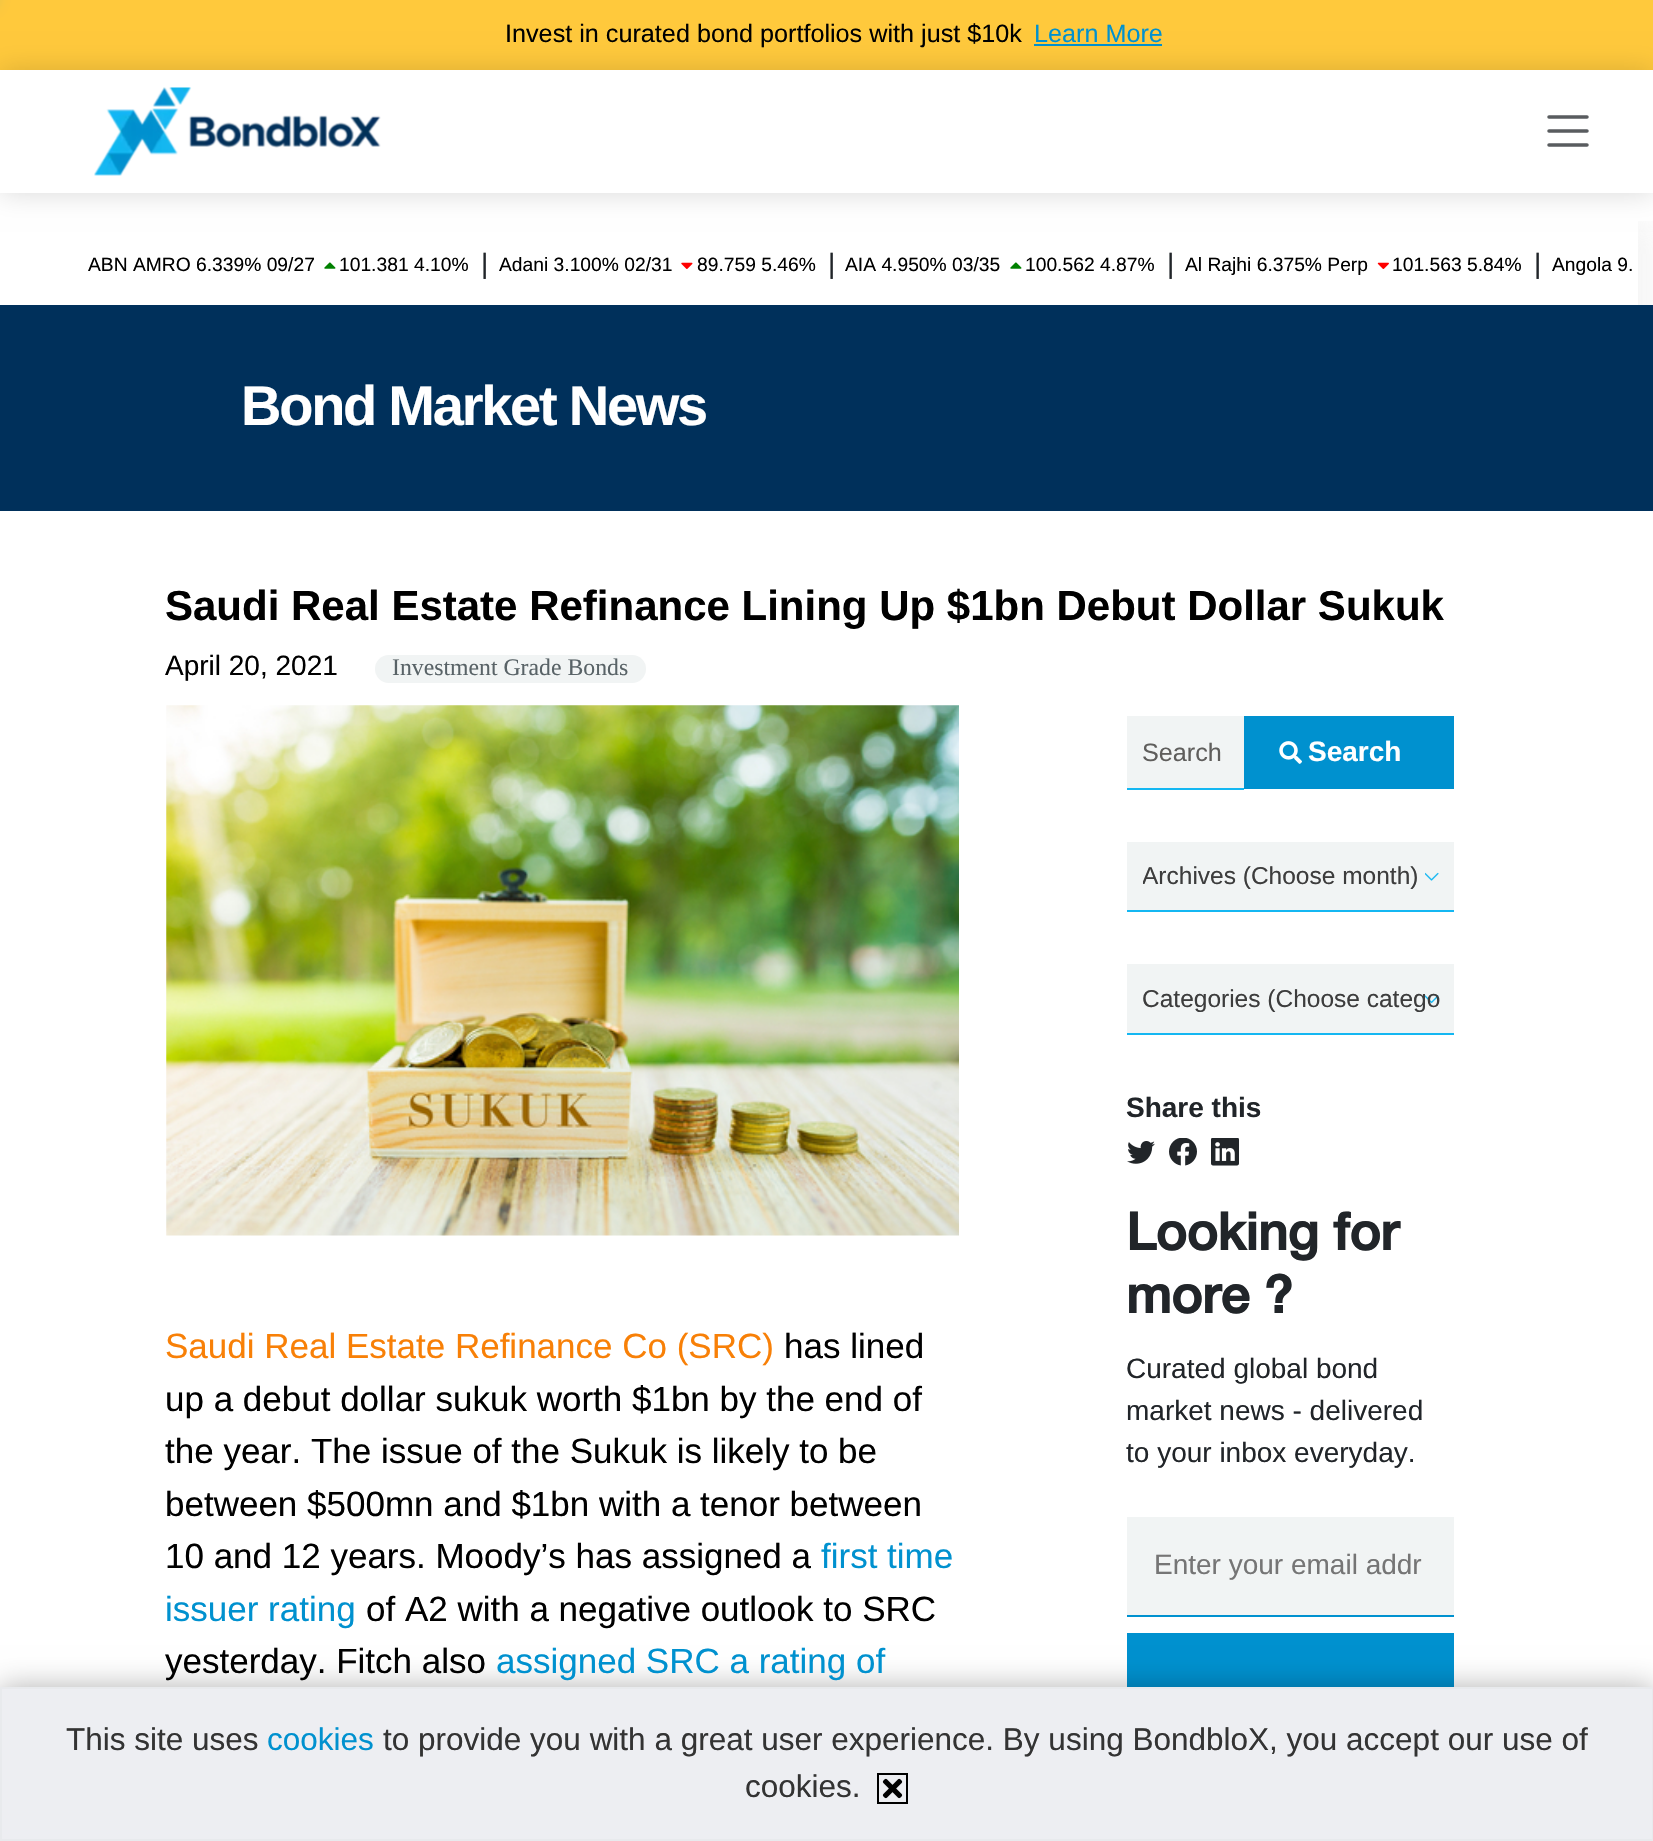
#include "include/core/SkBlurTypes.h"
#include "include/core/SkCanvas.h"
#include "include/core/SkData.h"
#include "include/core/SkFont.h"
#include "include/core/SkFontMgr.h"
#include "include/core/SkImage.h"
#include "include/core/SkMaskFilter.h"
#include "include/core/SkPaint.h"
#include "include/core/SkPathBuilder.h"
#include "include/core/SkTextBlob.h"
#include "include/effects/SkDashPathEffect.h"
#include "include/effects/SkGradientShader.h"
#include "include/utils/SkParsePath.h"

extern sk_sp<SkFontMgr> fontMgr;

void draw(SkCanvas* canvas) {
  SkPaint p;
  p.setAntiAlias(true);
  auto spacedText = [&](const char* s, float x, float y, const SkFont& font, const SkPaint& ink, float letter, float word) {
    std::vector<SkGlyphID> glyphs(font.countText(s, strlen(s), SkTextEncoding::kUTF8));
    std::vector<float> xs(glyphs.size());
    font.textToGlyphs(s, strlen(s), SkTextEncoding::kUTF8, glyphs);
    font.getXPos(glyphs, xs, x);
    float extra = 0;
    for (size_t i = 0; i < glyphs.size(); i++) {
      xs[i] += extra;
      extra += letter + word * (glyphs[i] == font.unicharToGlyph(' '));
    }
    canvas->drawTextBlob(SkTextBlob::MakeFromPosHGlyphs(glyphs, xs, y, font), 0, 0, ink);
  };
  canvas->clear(SK_ColorWHITE);
  p.setColor(SkColorSetRGB(255, 201, 60));
  canvas->drawRect(SkRect::MakeLTRB(0, 0, 1653, 70), p);
  p.setColor(SkColorSetRGB(0, 145, 207));
  p.setMaskFilter(SkMaskFilter::MakeBlur(kNormal_SkBlurStyle, 9));
  canvas->drawRect(SkRect::MakeLTRB(-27, -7, -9, 0), p);
  p.setMaskFilter(nullptr);
  canvas->drawRect(SkRect::MakeLTRB(1034, 44, 1162, 46), p);
  p.setColor(SkColorSetRGB(0, 48, 91));
  canvas->drawRect(SkRect::MakeLTRB(0, 305, 1653, 511), p);
  canvas->save();
  canvas->clipRect(SkRect::MakeLTRB(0, 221, 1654, 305));
  p.setColor(SkColorSetARGB(51, 204, 204, 204));
  p.setMaskFilter(SkMaskFilter::MakeBlur(kNormal_SkBlurStyle, 13));
  canvas->drawRect(SkRect::MakeLTRB(-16, 222, 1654, 338), p);
  p.setMaskFilter(nullptr);
  canvas->restore();
  p.setColor(SK_ColorWHITE);
  canvas->drawRect(SkRect::MakeLTRB(0, 221, 1638, 305), p);
  p.setColor(SkColorSetARGB(38, 0, 0, 0));
  p.setMaskFilter(SkMaskFilter::MakeBlur(kNormal_SkBlurStyle, 13));
  canvas->drawRect(SkRect::MakeLTRB(0, 70, 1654, 193), p);
  p.setMaskFilter(nullptr);
  p.setColor(SK_ColorWHITE);
  canvas->drawRect(SkRect::MakeLTRB(0, 70, 1653, 193), p);
  canvas->drawImageRect(SkImages::DeferredFromEncodedData(SkData::MakeFromFileName("images/1.png")), SkRect::MakeLTRB(94, 87, 381, 176), SkSamplingOptions());
  p.setStyle(SkPaint::kStroke_Style);
  p.setStrokeWidth(3.5f);
  p.setStrokeCap(SkPaint::kRound_Cap);
  p.setColor(SkColorSetRGB(89, 92, 95));
  canvas->drawPath(SkPathBuilder().moveTo(1549, 117).lineTo(1587, 117).moveTo(1549, 131).lineTo(1587, 131).moveTo(1549, 145).lineTo(1587, 145).detach(), p);
  canvas->drawImageRect(SkImages::DeferredFromEncodedData(SkData::MakeFromFileName("images/2.png")), SkRect::MakeLTRB(324, 262, 336, 269), SkSamplingOptions());
  canvas->drawImageRect(SkImages::DeferredFromEncodedData(SkData::MakeFromFileName("images/3.png")), SkRect::MakeLTRB(681, 262, 693, 269), SkSamplingOptions());
  canvas->drawImageRect(SkImages::DeferredFromEncodedData(SkData::MakeFromFileName("images/2.png")), SkRect::MakeLTRB(1010, 262, 1022, 269), SkSamplingOptions());
  canvas->drawImageRect(SkImages::DeferredFromEncodedData(SkData::MakeFromFileName("images/4.png")), SkRect::MakeLTRB(1377, 262, 1389, 269), SkSamplingOptions());
  p.setStyle(SkPaint::kFill_Style);
  p.setColor(SkColorSetRGB(0, 145, 207));
  canvas->drawRect(SkRect::MakeLTRB(1127, 1633, 1454, 1687), p);
  p.setColor(SkColorSetARGB(77, 0, 0, 0));
  p.setMaskFilter(SkMaskFilter::MakeBlur(kNormal_SkBlurStyle, 14));
  canvas->drawRect(SkRect::MakeLTRB(0, 1687, 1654, 1841), p);
  p.setMaskFilter(nullptr);
  p.setColor(SkColorSetRGB(237, 238, 242));
  canvas->drawRect(SkRect::MakeLTRB(1, 1688, 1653, 1840), p);
  p.setStyle(SkPaint::kStroke_Style);
  p.setStrokeWidth(2);
  p.setStrokeCap(SkPaint::kButt_Cap);
  p.setColor(SkColorSetRGB(232, 234, 237));
  canvas->drawRect(SkRect::MakeLTRB(1, 1688, 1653, 1840), p);
  p.setColor(SK_ColorBLACK);
  canvas->drawRect(SkRect::MakeLTRB(878, 1774, 907, 1803), p);
  canvas->drawImageRect(SkImages::DeferredFromEncodedData(SkData::MakeFromFileName("images/5.png")), SkRect::MakeLTRB(882, 1778, 903, 1799), SkSamplingOptions());
  p.setStyle(SkPaint::kFill_Style);
  p.setColor(SkColorSetRGB(241, 244, 244));
  canvas->drawRoundRect(SkRect::MakeLTRB(375, 655, 646, 683), 14, 14, p);
  canvas->drawImageRect(SkImages::DeferredFromEncodedData(SkData::MakeFromFileName("images/6.png")), SkRect::MakeLTRB(166, 705, 959, 1236), SkSamplingOptions());
  canvas->drawRect(SkRect::MakeLTRB(1127, 716, 1244, 788), p);
  p.setColor(SkColorSetRGB(20, 183, 242));
  canvas->drawRect(SkRect::MakeLTRB(1127, 788, 1244, 790), p);
  p.setColor(SkColorSetRGB(0, 145, 207));
  canvas->drawRect(SkRect::MakeLTRB(1244, 716, 1454, 789), p);
  canvas->drawImageRect(SkImages::DeferredFromEncodedData(SkData::MakeFromFileName("images/7.png")), SkRect::MakeLTRB(1279, 741, 1302, 764), SkSamplingOptions());
  p.setColor(SkColorSetRGB(241, 244, 244));
  canvas->drawRect(SkRect::MakeLTRB(1127, 842, 1454, 910), p);
  canvas->drawImageRect(SkImages::DeferredFromEncodedData(SkData::MakeFromFileName("images/8.png")), SkRect::MakeLTRB(1425, 872, 1439, 881), SkSamplingOptions());
  p.setColor(SkColorSetRGB(20, 183, 242));
  canvas->drawRect(SkRect::MakeLTRB(1127, 910, 1454, 912), p);
  p.setColor(SkColorSetRGB(241, 244, 244));
  canvas->drawRect(SkRect::MakeLTRB(1127, 964, 1454, 1033), p);
  canvas->drawImageRect(SkImages::DeferredFromEncodedData(SkData::MakeFromFileName("images/9.png")), SkRect::MakeLTRB(1425, 995, 1439, 1004), SkSamplingOptions());
  p.setColor(SkColorSetRGB(20, 183, 242));
  canvas->drawRect(SkRect::MakeLTRB(1127, 1033, 1454, 1035), p);
  canvas->drawImageRect(SkImages::DeferredFromEncodedData(SkData::MakeFromFileName("images/10.png")), SkRect::MakeLTRB(1127, 1141, 1155, 1164), SkSamplingOptions());
  canvas->drawImageRect(SkImages::DeferredFromEncodedData(SkData::MakeFromFileName("images/11.png")), SkRect::MakeLTRB(1169, 1138, 1197, 1166), SkSamplingOptions());
  canvas->drawImageRect(SkImages::DeferredFromEncodedData(SkData::MakeFromFileName("images/12.png")), SkRect::MakeLTRB(1211, 1138, 1239, 1166), SkSamplingOptions());
  p.setColor(SkColorSetRGB(241, 244, 244));
  canvas->drawRect(SkRect::MakeLTRB(1127, 1517, 1454, 1615), p);
  p.setColor(SkColorSetRGB(0, 145, 207));
  canvas->drawRect(SkRect::MakeLTRB(1127, 1615, 1454, 1617), p);
  SkFont font1(fontMgr->matchFamilyStyle("Liberation Sans", SkFontStyle::Normal()), 25.2f);
  font1.setSubpixel(true);
  p.setColor(SK_ColorBLACK);
  canvas->drawString("Invest in curated bond portfolios with just $10k", 505, 42, font1, p);
  p.setColor(SkColorSetRGB(0, 145, 207));
  canvas->drawString("Learn More", 1034, 42, font1, p);
  SkFont font2(fontMgr->matchFamilyStyle("Liberation Sans", SkFontStyle::Normal()), 19.25f);
  font2.setSubpixel(true);
  p.setColor(SK_ColorBLACK);
  canvas->drawString("ABN AMRO 6.339% 09/27", 88, 271, font2, p);
  canvas->drawString("101.381 4.10%", 339, 271, font2, p);
  SkFont font3(fontMgr->matchFamilyStyle("Liberation Sans", SkFontStyle::Normal()), 28);
  font3.setSubpixel(true);
  p.setColor(SkColorSetRGB(33, 37, 41));
  canvas->drawString("|", 481, 273, font3, p);
  p.setColor(SK_ColorBLACK);
  canvas->drawString("Adani 3.100% 02/31", 499, 271, font2, p);
  canvas->drawString("89.759 5.46%", 697, 271, font2, p);
  p.setColor(SkColorSetRGB(33, 37, 41));
  canvas->drawString("|", 828, 273, font3, p);
  p.setColor(SK_ColorBLACK);
  canvas->drawString("AIA 4.950% 03/35", 845, 271, font2, p);
  canvas->drawString("100.562 4.87%", 1025, 271, font2, p);
  p.setColor(SkColorSetRGB(33, 37, 41));
  canvas->drawString("|", 1167, 273, font3, p);
  p.setColor(SK_ColorBLACK);
  canvas->drawString("Al Rajhi 6.375% Perp", 1185, 271, font2, p);
  canvas->drawString("101.563 5.84%", 1392, 271, font2, p);
  p.setColor(SkColorSetRGB(33, 37, 41));
  canvas->drawString("|", 1534, 273, font3, p);
  p.setColor(SK_ColorBLACK);
  canvas->drawString("Angola 9.", 1552, 271, font2, p);
  SkFont font4(fontMgr->matchFamilyStyle("Liberation Sans", SkFontStyle::Normal()), 31.5f);
  font4.setSubpixel(true);
  p.setColor(SkColorSetRGB(51, 51, 51));
  canvas->drawString("This site uses", 66, 1750, font4, p);
  p.setColor(SkColorSetRGB(0, 145, 207));
  canvas->drawString("cookies", 267, 1750, font4, p);
  p.setColor(SkColorSetRGB(51, 51, 51));
  canvas->drawString("to provide you with a great user experience. By using BondbloX, you accept our use of", 383, 1750, font4, p);
  canvas->drawString("cookies.", 745, 1797, font4, p);
  SkFont font5(fontMgr->matchFamilyStyle("Liberation Sans", SkFontStyle::Bold()), 56);
  font5.setSubpixel(true);
  p.setColor(SK_ColorWHITE);
  spacedText("Bond Market News", 241, 425, font5, p, -2.25f, 0);
  SkFont font6(fontMgr->matchFamilyStyle("Liberation Sans", SkFontStyle::Bold()), 42);
  font6.setSubpixel(true);
  p.setColor(SK_ColorBLACK);
  canvas->drawString("Saudi Real Estate Refinance Lining Up $1bn Debut Dollar Sukuk", 165, 620, font6, p);
  canvas->drawString("April 20, 2021", 165, 675, font3, p);
  SkFont font7(fontMgr->matchFamilyStyle("Liberation Serif", SkFontStyle::Normal()), 23.75f);
  font7.setSubpixel(true);
  p.setColor(SkColorSetRGB(89, 99, 103));
  canvas->drawString("Investment Grade Bonds", 392, 675, font7, p);
  SkFont font8(fontMgr->matchFamilyStyle("Liberation Sans", SkFontStyle::Normal()), 35);
  font8.setSubpixel(true);
  p.setColor(SkColorSetRGB(248, 128, 7));
  canvas->drawString("Saudi Real Estate Refinance Co (SRC)", 165, 1358, font8, p);
  p.setColor(SK_ColorBLACK);
  canvas->drawString("has lined", 784, 1358, font8, p);
  canvas->drawString("up a debut dollar sukuk worth $1bn by the end of", 165, 1411, font8, p);
  canvas->drawString("the year. The issue of the Sukuk is likely to be", 165, 1463, font8, p);
  canvas->drawString("between $500mn and $1bn with a tenor between", 165, 1516, font8, p);
  canvas->drawString("10 and 12 years. Moody’s has assigned a", 165, 1568, font8, p);
  p.setColor(SkColorSetRGB(0, 145, 207));
  canvas->drawString("first time", 821, 1568, font8, p);
  canvas->drawString("issuer rating", 165, 1621, font8, p);
  p.setColor(SK_ColorBLACK);
  canvas->drawString("of A2 with a negative outlook to SRC", 366, 1621, font8, p);
  canvas->drawString("yesterday. Fitch also", 165, 1673, font8, p);
  p.setColor(SkColorSetRGB(0, 145, 207));
  canvas->drawString("assigned SRC a rating of", 496, 1673, font8, p);
  p.setColor(SkColorSetRGB(95, 94, 92));
  canvas->drawString("Search", 1142, 761, font1, p);
  SkFont font9(fontMgr->matchFamilyStyle("Liberation Sans", SkFontStyle::Bold()), 28);
  font9.setSubpixel(true);
  p.setColor(SK_ColorWHITE);
  canvas->drawString("Search", 1308, 761, font9, p);
  canvas->save();
  canvas->clipRect(SkRect::MakeLTRB(1143, 858, 1439, 894));
  SkFont font10(fontMgr->matchFamilyStyle("Liberation Sans", SkFontStyle::Normal()), 24.5f);
  font10.setSubpixel(true);
  p.setColor(SkColorSetRGB(61, 61, 61));
  canvas->drawString("Archives (Choose month)", 1142, 884, font10, p);
  canvas->restore();
  canvas->drawString("Categories (Choose catego", 1142, 1007, font10, p);
  p.setColor(SkColorSetRGB(33, 37, 41));
  canvas->drawString("Share this", 1126, 1117, font9, p);
  SkFont font11(fontMgr->matchFamilyStyle("Helvetica Neue", SkFontStyle::Bold()), 52);
  font11.setSubpixel(true);
  canvas->drawString("Looking for", 1126, 1250, font11, p);
  canvas->drawString("more ?", 1126, 1313, font11, p);
  canvas->drawString("Curated global bond", 1126, 1378, font3, p);
  canvas->drawString("market news - delivered", 1126, 1420, font3, p);
  canvas->drawString("to your inbox everyday.", 1126, 1462, font3, p);
  p.setColor(SkColorSetRGB(117, 117, 117));
  canvas->drawString("Enter your email addr", 1154, 1574, font3, p);
}
